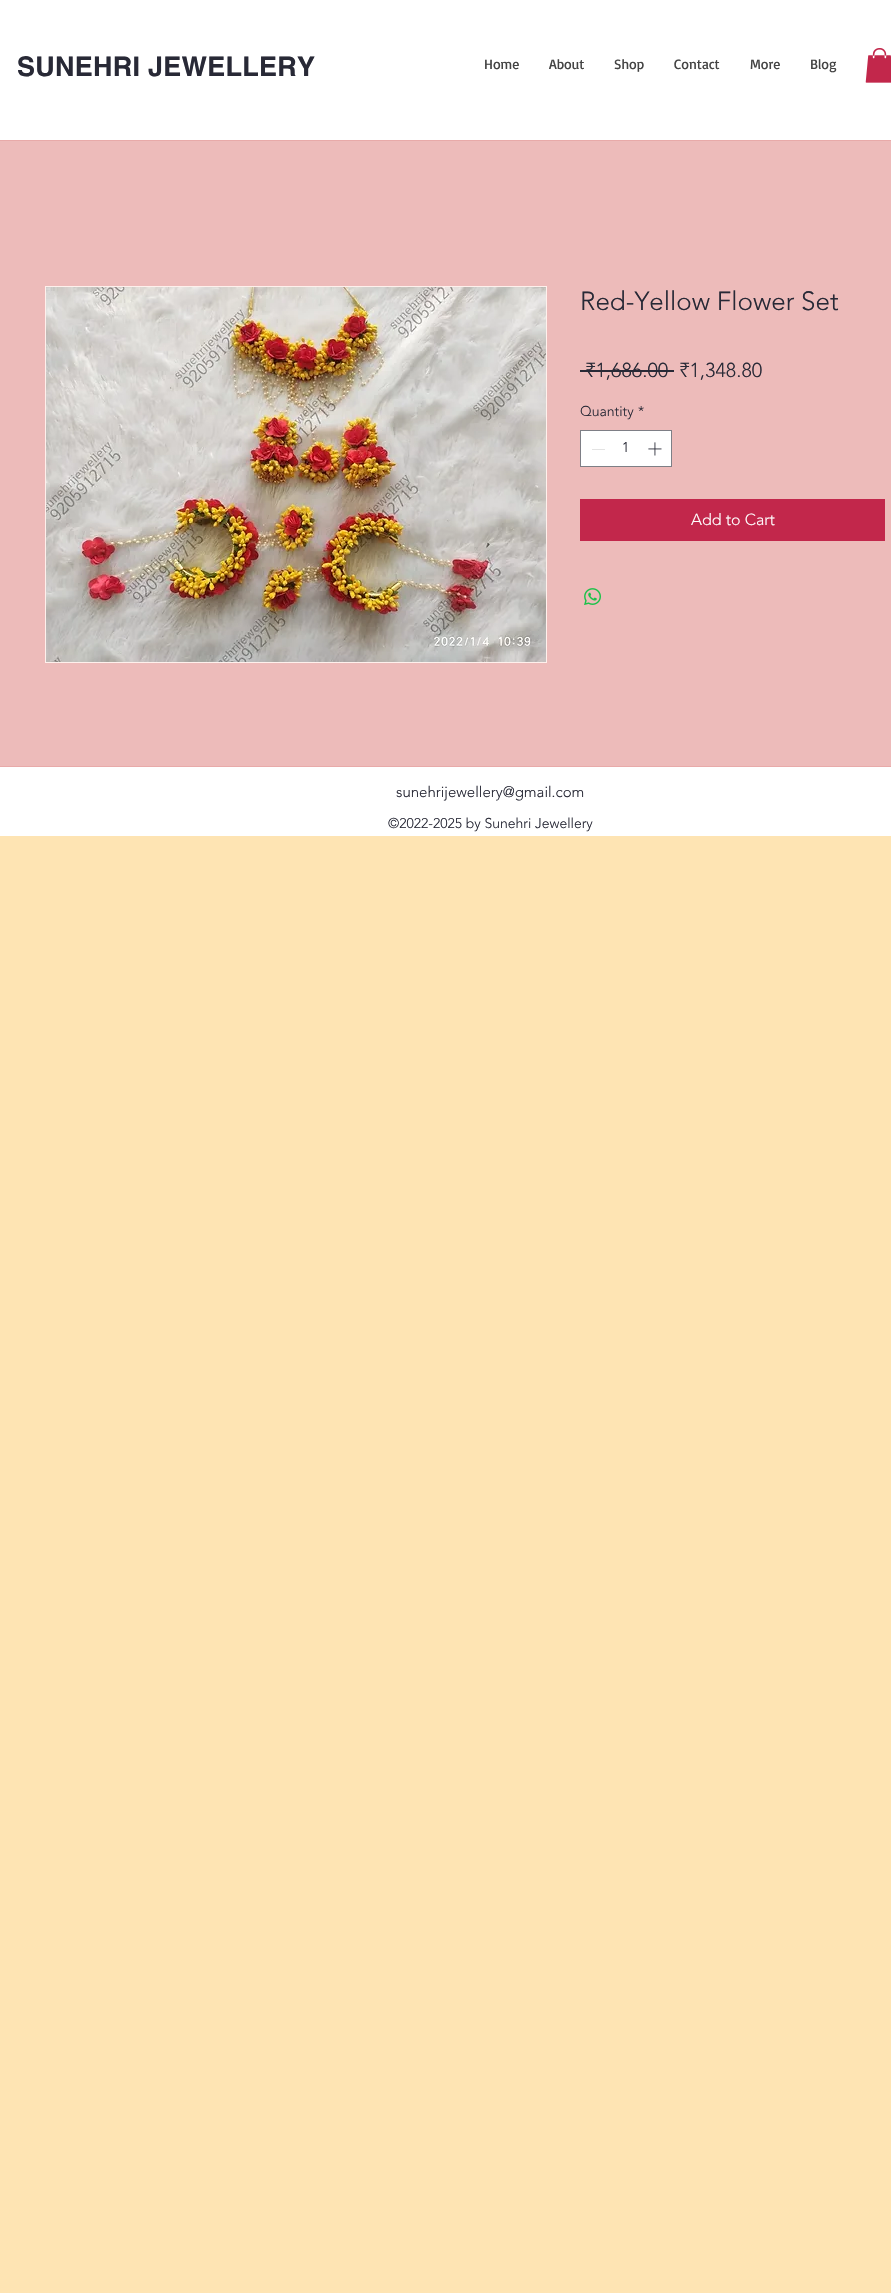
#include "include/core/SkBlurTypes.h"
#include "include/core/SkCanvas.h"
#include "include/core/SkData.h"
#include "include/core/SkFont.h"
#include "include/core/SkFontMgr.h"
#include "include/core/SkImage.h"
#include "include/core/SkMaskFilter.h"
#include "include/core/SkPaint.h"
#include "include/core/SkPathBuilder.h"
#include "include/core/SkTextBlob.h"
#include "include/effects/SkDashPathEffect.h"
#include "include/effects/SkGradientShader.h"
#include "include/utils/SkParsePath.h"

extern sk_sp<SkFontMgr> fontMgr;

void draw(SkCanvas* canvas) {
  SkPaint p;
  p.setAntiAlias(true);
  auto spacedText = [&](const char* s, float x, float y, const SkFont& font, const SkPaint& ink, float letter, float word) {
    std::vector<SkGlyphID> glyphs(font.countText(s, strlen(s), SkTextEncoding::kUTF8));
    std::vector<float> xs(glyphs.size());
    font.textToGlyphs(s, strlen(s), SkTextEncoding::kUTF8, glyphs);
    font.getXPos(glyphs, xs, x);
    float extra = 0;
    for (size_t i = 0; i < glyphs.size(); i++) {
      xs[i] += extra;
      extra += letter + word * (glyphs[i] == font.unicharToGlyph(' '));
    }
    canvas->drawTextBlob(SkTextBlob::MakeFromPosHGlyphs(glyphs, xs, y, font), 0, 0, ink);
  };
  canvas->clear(SkColorSetRGB(254, 228, 179));
  p.setColor(SK_ColorWHITE);
  canvas->drawRect(SkRect::MakeLTRB(0, 0, 891, 140), p);
  canvas->drawImageRect(SkImages::DeferredFromEncodedData(SkData::MakeFromFileName("images/1.png")), SkRect::MakeLTRB(865, 48, 891, 83), SkSamplingOptions());
  p.setColor(SkColorSetRGB(232, 170, 169));
  canvas->drawRect(SkRect::MakeLTRB(0, 140, 891, 767), p);
  p.setColor(SkColorSetRGB(237, 187, 186));
  canvas->drawRect(SkRect::MakeLTRB(0, 141, 891, 766), p);
  p.setStyle(SkPaint::kStroke_Style);
  p.setStrokeWidth(1);
  p.setColor(SkColorSetRGB(255, 240, 236));
  canvas->drawRect(SkRect::MakeLTRB(45.5f, 286.5f, 546.5f, 662.5f), p);
  canvas->drawImageRect(SkImages::DeferredFromEncodedData(SkData::MakeFromFileName("images/2.png")), SkRect::MakeLTRB(46, 287, 546, 662), SkSamplingOptions());
  p.setStyle(SkPaint::kFill_Style);
  p.setColor(SkColorSetRGB(40, 41, 54));
  canvas->drawRect(SkRect::MakeLTRB(580, 370, 674, 372), p);
  p.setColor(SK_ColorWHITE);
  canvas->drawRect(SkRect::MakeLTRB(580.5f, 430.5f, 671.5f, 466.5f), p);
  p.setStyle(SkPaint::kStroke_Style);
  p.setColor(SkColorSetRGB(126, 127, 134));
  canvas->drawRect(SkRect::MakeLTRB(580.5f, 430.5f, 671.5f, 466.5f), p);
  p.setStyle(SkPaint::kFill_Style);
  p.setColor(SkColorSetRGB(227, 227, 227));
  canvas->drawRect(SkRect::MakeLTRB(592, 449, 605, 450), p);
  canvas->drawImageRect(SkImages::DeferredFromEncodedData(SkData::MakeFromFileName("images/3.png")), SkRect::MakeLTRB(648, 442, 662, 456), SkSamplingOptions());
  p.setColor(SkColorSetRGB(194, 39, 75));
  canvas->drawRect(SkRect::MakeLTRB(580, 499, 885, 541), p);
  canvas->drawImageRect(SkImages::DeferredFromEncodedData(SkData::MakeFromFileName("images/4.png")), SkRect::MakeLTRB(584, 588, 601, 605), SkSamplingOptions());
  p.setColor(SK_ColorWHITE);
  canvas->drawRect(SkRect::MakeLTRB(0, 767, 891, 836), p);
  SkFont font1(fontMgr->matchFamilyStyle("helvetica", SkFontStyle::Bold()), 27);
  font1.setSubpixel(true);
  p.setColor(SkColorSetRGB(40, 41, 54));
  spacedText("SUNEHRI JEWELLERY", 17, 76, font1, p, 0.25f, 0);
  SkFont font2(fontMgr->matchFamilyStyle("Basic", SkFontStyle::Normal()), 14);
  font2.setSubpixel(true);
  p.setColor(SkColorSetRGB(68, 68, 68));
  canvas->drawString("Home", 484, 69, font2, p);
  canvas->drawString("About", 549, 69, font2, p);
  canvas->drawString("Shop", 614, 69, font2, p);
  canvas->drawString("Contact", 674, 69, font2, p);
  canvas->drawString("More", 750, 69, font2, p);
  canvas->drawString("Blog", 810, 69, font2, p);
  SkFont font3(fontMgr->matchFamilyStyle("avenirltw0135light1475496", SkFontStyle(300, SkFontStyle::kNormal_Width, SkFontStyle::kUpright_Slant)), 26);
  font3.setSubpixel(true);
  p.setColor(SkColorSetRGB(40, 41, 54));
  canvas->drawString("Red-Yellow Flower Set", 580, 310, font3, p);
  SkFont font4(fontMgr->matchFamilyStyle("avenirltw0135light1475496", SkFontStyle(300, SkFontStyle::kNormal_Width, SkFontStyle::kUpright_Slant)), 20);
  font4.setSubpixel(true);
  canvas->drawString("₹1,686.00", 585, 377, font4, p);
  canvas->drawString("₹1,348.80", 679, 377, font4, p);
  SkFont font5(fontMgr->matchFamilyStyle("avenirltw0135light1475496", SkFontStyle(300, SkFontStyle::kNormal_Width, SkFontStyle::kUpright_Slant)), 14);
  font5.setSubpixel(true);
  canvas->drawString("Quantity", 580, 416, font5, p);
  canvas->drawString("*", 638, 416, font5, p);
  canvas->drawString("1", 622, 452, font5, p);
  SkFont font6(fontMgr->matchFamilyStyle("avenirltw0135light1475496", SkFontStyle(300, SkFontStyle::kNormal_Width, SkFontStyle::kUpright_Slant)), 16);
  font6.setSubpixel(true);
  p.setColor(SK_ColorWHITE);
  canvas->drawString("Add to Cart", 691, 525, font6, p);
  SkFont font7(fontMgr->matchFamilyStyle("avenirltw0135light1475496", SkFontStyle(300, SkFontStyle::kNormal_Width, SkFontStyle::kUpright_Slant)), 15);
  font7.setSubpixel(true);
  p.setColor(SkColorSetRGB(40, 41, 54));
  canvas->drawString("sunehrijewellery@gmail.com", 396, 797, font7, p);
  canvas->drawString("©2022-2025 by Sunehri Jewellery", 388, 828, font5, p);
}
